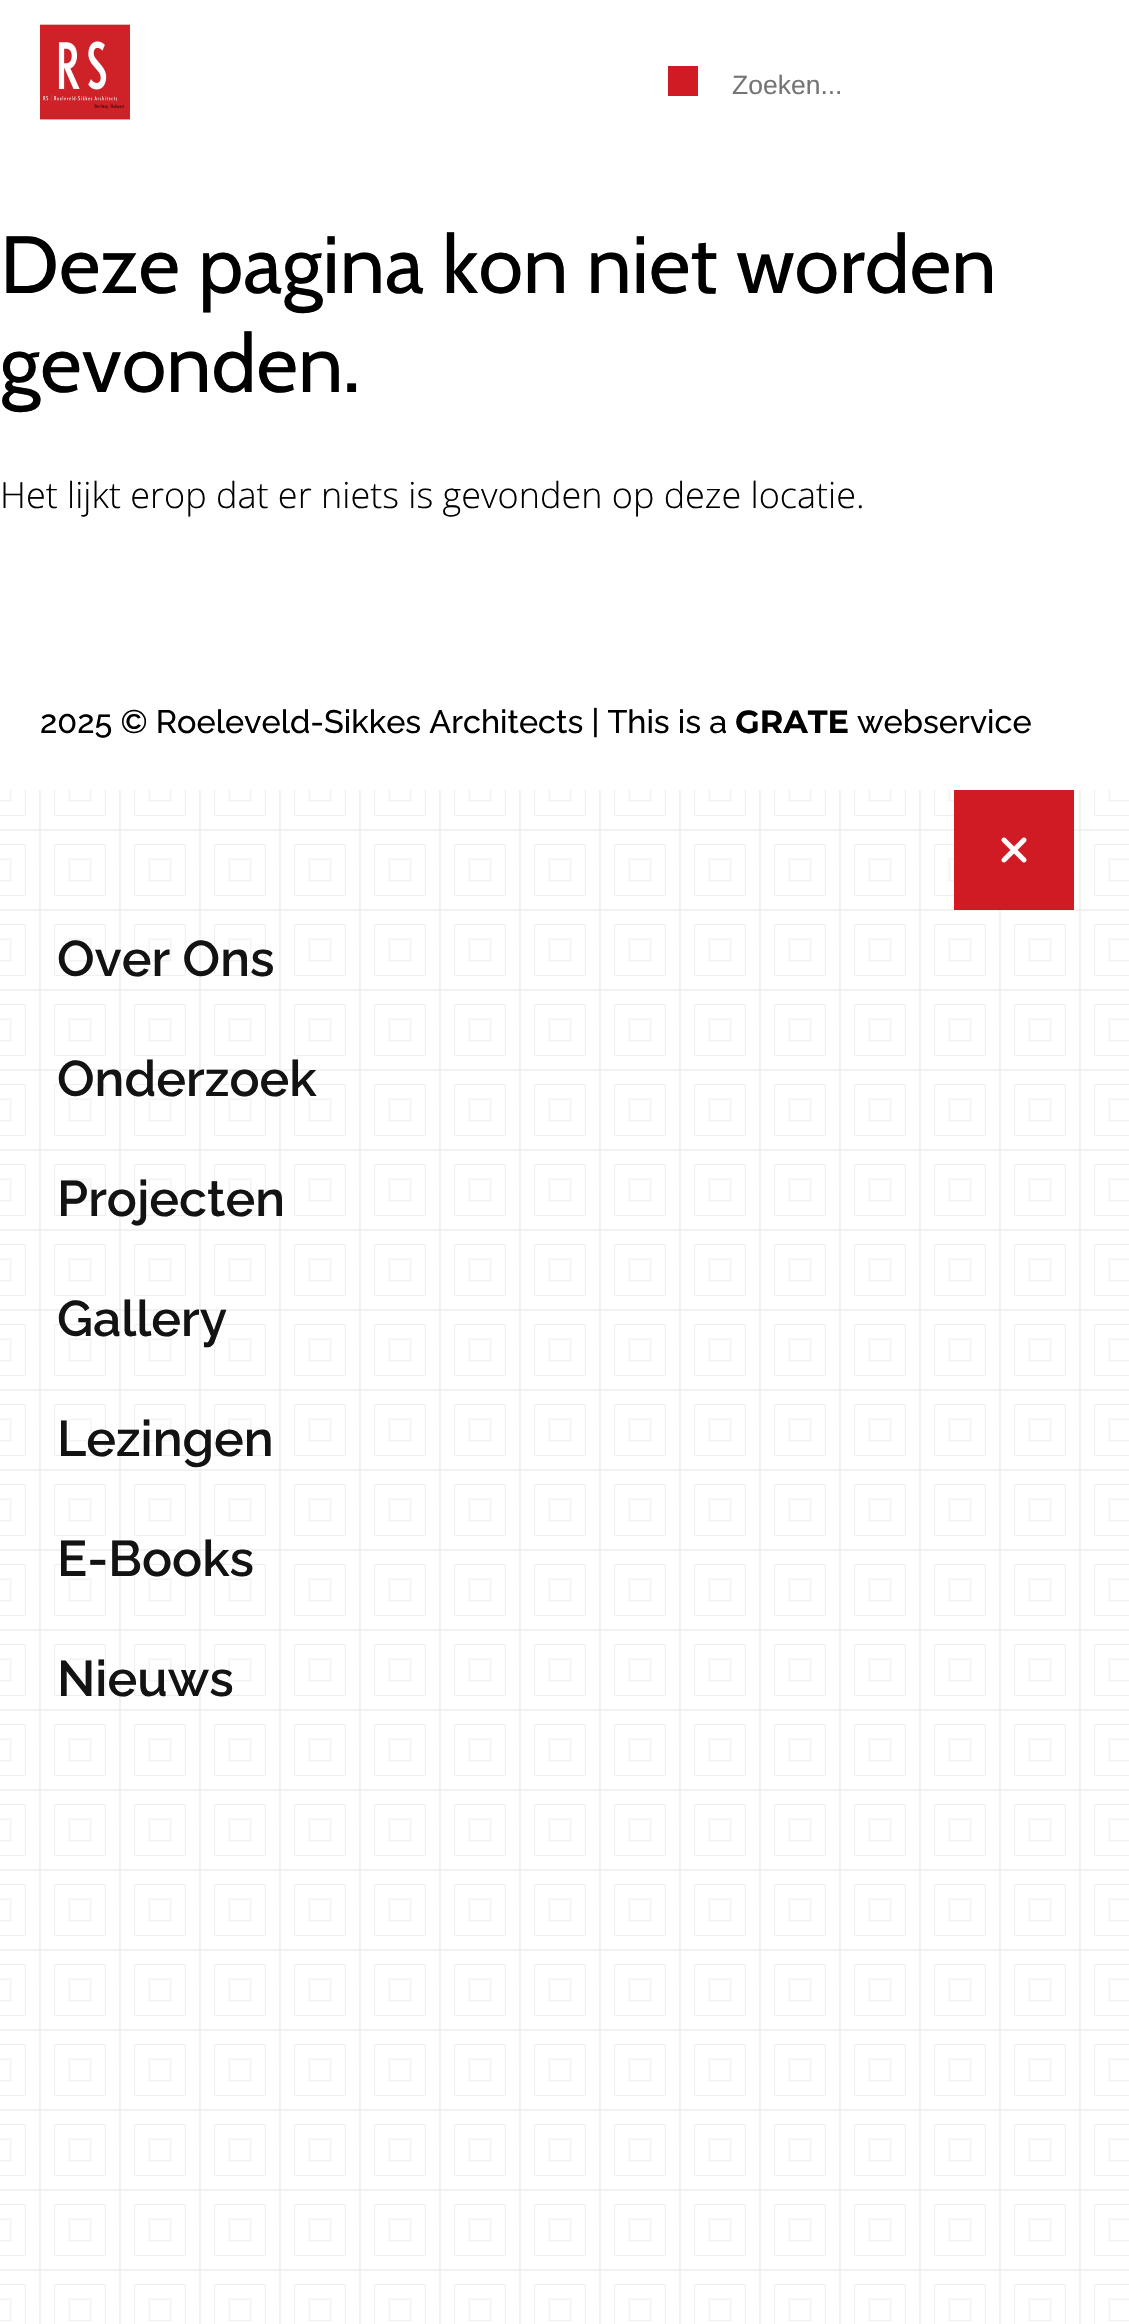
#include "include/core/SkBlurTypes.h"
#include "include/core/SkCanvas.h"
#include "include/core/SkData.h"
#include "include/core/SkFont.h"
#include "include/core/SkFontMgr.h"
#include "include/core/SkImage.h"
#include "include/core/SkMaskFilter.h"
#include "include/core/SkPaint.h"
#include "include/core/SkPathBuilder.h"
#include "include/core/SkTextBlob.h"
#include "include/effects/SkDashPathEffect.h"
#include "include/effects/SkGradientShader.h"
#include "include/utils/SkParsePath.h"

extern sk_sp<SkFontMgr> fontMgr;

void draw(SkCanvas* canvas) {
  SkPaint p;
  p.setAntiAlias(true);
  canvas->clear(SK_ColorWHITE);
  canvas->drawImageRect(SkImages::DeferredFromEncodedData(SkData::MakeFromFileName("images/1.png")), SkRect::MakeLTRB(40, 24, 130, 120), SkSamplingOptions());
  p.setColor(SkColorSetRGB(208, 27, 37));
  canvas->drawRect(SkRect::MakeLTRB(668, 66, 698, 96), p);
  canvas->drawImageRect(SkImages::DeferredFromEncodedData(SkData::MakeFromFileName("images/2.png")), SkRect::MakeLTRB(0, 790, 1129, 2324), SkSamplingOptions());
  canvas->drawRect(SkRect::MakeLTRB(954, 790, 1074, 910), p);
  canvas->drawImageRect(SkImages::DeferredFromEncodedData(SkData::MakeFromFileName("images/3.png")), SkRect::MakeLTRB(1001, 837, 1027, 863), SkSamplingOptions());
  SkFont font1(fontMgr->matchFamilyStyle("Liberation Sans", SkFontStyle::Normal()), 26.5f);
  font1.setSubpixel(true);
  p.setColor(SkColorSetRGB(117, 117, 117));
  canvas->drawString("Zoeken...", 732, 94, font1, p);
  SkFont font2(fontMgr->matchFamilyStyle("Cabin", SkFontStyle::Normal()), 81);
  font2.setSubpixel(true);
  p.setColor(SK_ColorBLACK);
  canvas->drawString("Deze pagina kon niet worden", 0, 293, font2, p);
  canvas->drawString("gevonden.", 0, 392, font2, p);
  SkFont font3(fontMgr->matchFamilyStyle("Open Sans", SkFontStyle(300, SkFontStyle::kNormal_Width, SkFontStyle::kUpright_Slant)), 36);
  font3.setSubpixel(true);
  canvas->drawString("Het lijkt erop dat er niets is gevonden op deze locatie.", 0, 508, font3, p);
  SkFont font4(fontMgr->matchFamilyStyle("Raleway", SkFontStyle(500, SkFontStyle::kNormal_Width, SkFontStyle::kUpright_Slant)), 32.4f);
  font4.setSubpixel(true);
  canvas->drawString("2025 © Roeleveld-Sikkes Architects | This is a", 40, 733, font4, p);
  SkFont font5(fontMgr->matchFamilyStyle("Montserrat", SkFontStyle::Bold()), 32);
  font5.setSubpixel(true);
  canvas->drawString("GRATE", 735, 733, font5, p);
  canvas->drawString("webservice", 857, 733, font4, p);
  SkFont font6(fontMgr->matchFamilyStyle("Raleway", SkFontStyle(600, SkFontStyle::kNormal_Width, SkFontStyle::kUpright_Slant)), 50);
  font6.setSubpixel(true);
  p.setColor(SkColorSetRGB(20, 19, 19));
  canvas->drawString("Over Ons", 57, 976, font6, p);
  canvas->drawString("Onderzoek", 57, 1096, font6, p);
  canvas->drawString("Projecten", 57, 1216, font6, p);
  canvas->drawString("Gallery", 57, 1336, font6, p);
  canvas->drawString("Lezingen", 57, 1456, font6, p);
  canvas->drawString("E-Books", 57, 1576, font6, p);
  canvas->drawString("Nieuws", 57, 1696, font6, p);
}
